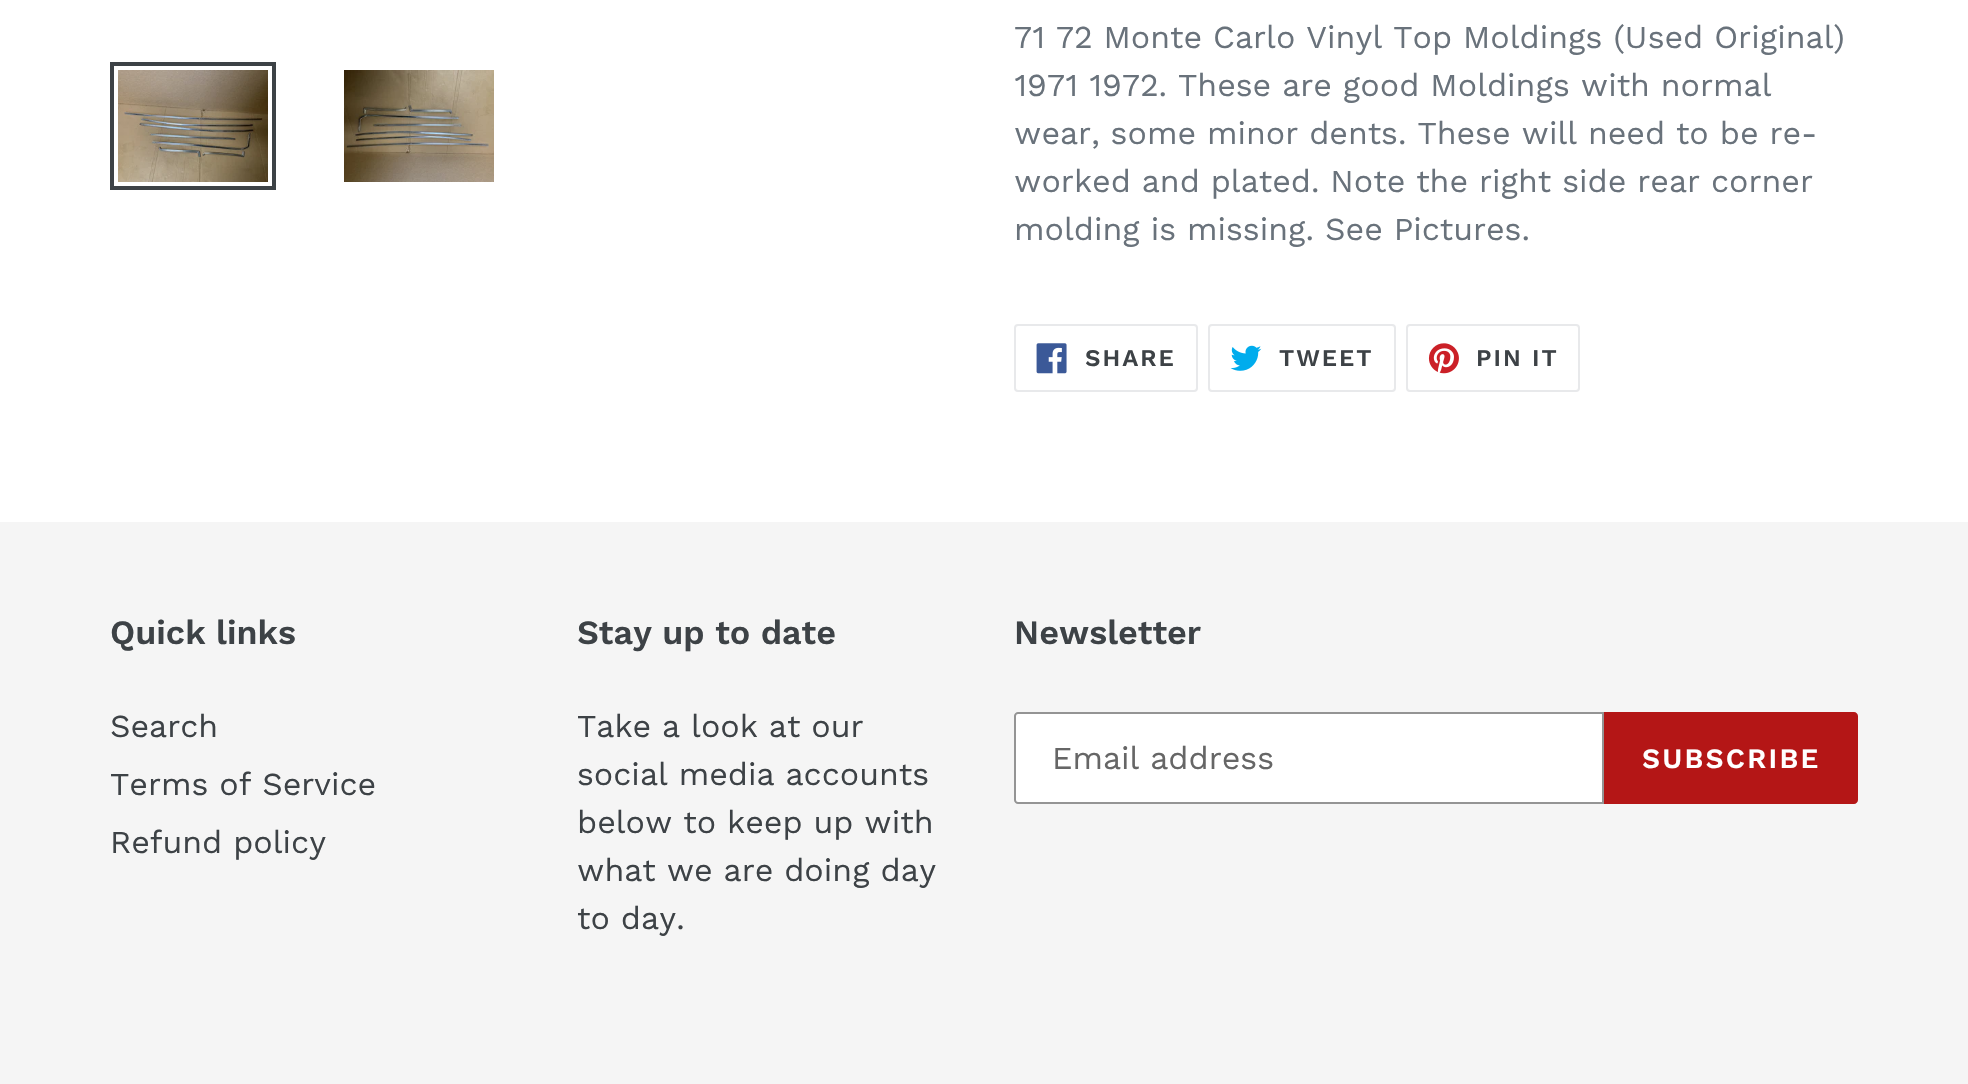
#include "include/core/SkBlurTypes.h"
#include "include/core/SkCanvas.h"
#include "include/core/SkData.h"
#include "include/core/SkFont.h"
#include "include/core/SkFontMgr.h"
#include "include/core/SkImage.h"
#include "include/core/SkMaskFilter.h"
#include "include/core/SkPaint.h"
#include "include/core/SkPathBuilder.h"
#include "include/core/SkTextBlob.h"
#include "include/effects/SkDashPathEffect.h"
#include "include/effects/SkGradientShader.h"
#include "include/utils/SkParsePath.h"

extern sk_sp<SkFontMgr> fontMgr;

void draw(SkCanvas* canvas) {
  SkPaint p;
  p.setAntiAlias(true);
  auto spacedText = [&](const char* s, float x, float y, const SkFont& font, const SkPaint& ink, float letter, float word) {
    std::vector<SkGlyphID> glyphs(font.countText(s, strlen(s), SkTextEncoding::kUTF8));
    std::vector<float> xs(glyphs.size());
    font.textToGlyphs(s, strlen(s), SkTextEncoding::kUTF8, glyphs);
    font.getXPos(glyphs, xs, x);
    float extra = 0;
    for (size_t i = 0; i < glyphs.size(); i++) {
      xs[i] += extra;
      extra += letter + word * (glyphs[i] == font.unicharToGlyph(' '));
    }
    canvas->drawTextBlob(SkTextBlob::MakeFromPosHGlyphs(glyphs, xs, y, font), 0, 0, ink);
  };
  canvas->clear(SK_ColorWHITE);
  p.setStyle(SkPaint::kStroke_Style);
  p.setStrokeWidth(4);
  p.setColor(SkColorSetRGB(61, 66, 70));
  canvas->drawRect(SkRect::MakeLTRB(112, 64, 274, 188), p);
  canvas->drawImageRect(SkImages::DeferredFromEncodedData(SkData::MakeFromFileName("images/1.png")), SkRect::MakeLTRB(118, 70, 268, 182), SkSamplingOptions());
  canvas->drawImageRect(SkImages::DeferredFromEncodedData(SkData::MakeFromFileName("images/2.png")), SkRect::MakeLTRB(344, 70, 494, 182), SkSamplingOptions());
  p.setStrokeWidth(2);
  p.setColor(SkColorSetRGB(232, 233, 235));
  canvas->drawRoundRect(SkRect::MakeLTRB(1015, 325, 1197, 391), 3, 3, p);
  canvas->drawImageRect(SkImages::DeferredFromEncodedData(SkData::MakeFromFileName("images/3.png")), SkRect::MakeLTRB(1036, 343, 1067, 374), SkSamplingOptions());
  canvas->drawRoundRect(SkRect::MakeLTRB(1209, 325, 1395, 391), 3, 3, p);
  canvas->drawImageRect(SkImages::DeferredFromEncodedData(SkData::MakeFromFileName("images/4.png")), SkRect::MakeLTRB(1230, 345, 1262, 371), SkSamplingOptions());
  canvas->drawRoundRect(SkRect::MakeLTRB(1407, 325, 1579, 391), 3, 3, p);
  canvas->drawImageRect(SkImages::DeferredFromEncodedData(SkData::MakeFromFileName("images/5.png")), SkRect::MakeLTRB(1428, 343, 1459, 374), SkSamplingOptions());
  p.setStyle(SkPaint::kFill_Style);
  p.setColor(SkColorSetRGB(245, 245, 245));
  canvas->drawRect(SkRect::MakeLTRB(0, 522, 1968, 1084), p);
  p.setColor(SK_ColorWHITE);
  canvas->drawPath(SkPathBuilder().moveTo(1018, 713).lineTo(1603, 713).lineTo(1603, 803).lineTo(1018, 803).cubicTo(1016.5f, 803, 1015, 801.5f, 1015, 800).lineTo(1015, 716).cubicTo(1015, 714.5f, 1016.5f, 713, 1018, 713).close().detach(), p);
  p.setStyle(SkPaint::kStroke_Style);
  p.setColor(SkColorSetRGB(148, 148, 148));
  canvas->drawPath(SkPathBuilder().moveTo(1018, 713).lineTo(1603, 713).lineTo(1603, 803).lineTo(1018, 803).cubicTo(1016.5f, 803, 1015, 801.5f, 1015, 800).lineTo(1015, 716).cubicTo(1015, 714.5f, 1016.5f, 713, 1018, 713).close().detach(), p);
  p.setStyle(SkPaint::kFill_Style);
  p.setColor(SkColorSetRGB(180, 22, 22));
  canvas->drawPath(SkPathBuilder().moveTo(1604, 712).lineTo(1854, 712).cubicTo(1856, 712, 1858, 714, 1858, 716).lineTo(1858, 800).cubicTo(1858, 802, 1856, 804, 1854, 804).lineTo(1604, 804).close().detach(), p);
  SkFont font1(fontMgr->matchFamilyStyle("Work Sans", SkFontStyle::Normal()), 32);
  font1.setSubpixel(true);
  p.setColor(SkColorSetRGB(105, 114, 123));
  canvas->drawString("71 72 Monte Carlo Vinyl Top Moldings (Used Original)", 1014, 48, font1, p);
  canvas->drawString("1971 1972. These are good Moldings with normal", 1014, 96, font1, p);
  canvas->drawString("wear, some minor dents. These will need to be re-", 1014, 144, font1, p);
  canvas->drawString("worked and plated. Note the right side rear corner", 1014, 192, font1, p);
  canvas->drawString("molding is missing. See Pictures.", 1014, 240, font1, p);
  SkFont font2(fontMgr->matchFamilyStyle("Work Sans", SkFontStyle(600, SkFontStyle::kNormal_Width, SkFontStyle::kUpright_Slant)), 24);
  font2.setSubpixel(true);
  p.setColor(SkColorSetRGB(61, 66, 70));
  spacedText("SHARE", 1085, 366, font2, p, 2, 0);
  spacedText("TWEET", 1279, 366, font2, p, 2, 0);
  spacedText("PIN IT", 1476, 366, font2, p, 2, 0);
  SkFont font3(fontMgr->matchFamilyStyle("Work Sans", SkFontStyle(600, SkFontStyle::kNormal_Width, SkFontStyle::kUpright_Slant)), 34);
  font3.setSubpixel(true);
  canvas->drawString("Quick links", 110, 644, font3, p);
  canvas->drawString("Search", 110, 737, font1, p);
  canvas->drawString("Terms of Service", 110, 795, font1, p);
  canvas->drawString("Refund policy", 110, 853, font1, p);
  canvas->drawString("Stay up to date", 577, 644, font3, p);
  canvas->drawString("Take a look at our", 577, 737, font1, p);
  canvas->drawString("social media accounts", 577, 785, font1, p);
  canvas->drawString("below to keep up with", 577, 833, font1, p);
  canvas->drawString("what we are doing day", 577, 881, font1, p);
  canvas->drawString("to day.", 577, 929, font1, p);
  canvas->drawString("Newsletter", 1014, 644, font3, p);
  p.setColor(SkColorSetRGB(102, 102, 102));
  canvas->drawString("Email address", 1052, 769, font1, p);
  SkFont font4(fontMgr->matchFamilyStyle("Work Sans", SkFontStyle(600, SkFontStyle::kNormal_Width, SkFontStyle::kUpright_Slant)), 28);
  font4.setSubpixel(true);
  p.setColor(SK_ColorWHITE);
  spacedText("SUBSCRIBE", 1642, 768, font4, p, 2.25f, 0);
}
